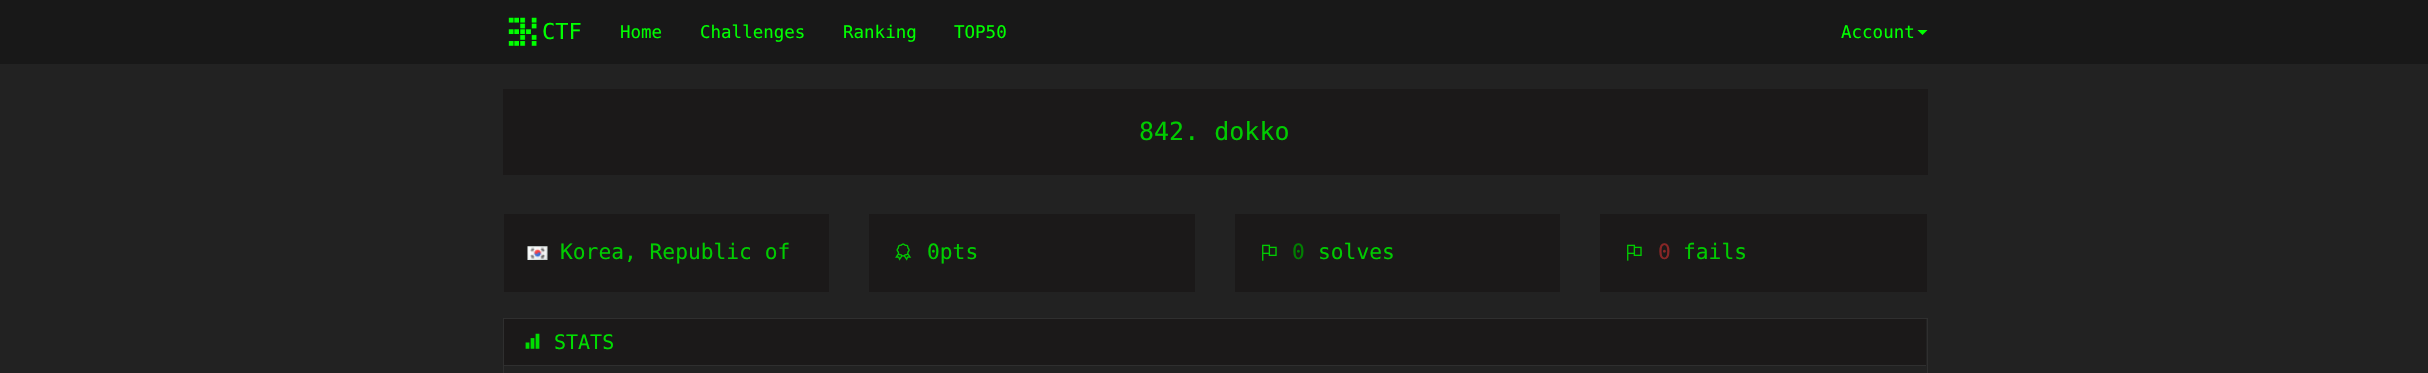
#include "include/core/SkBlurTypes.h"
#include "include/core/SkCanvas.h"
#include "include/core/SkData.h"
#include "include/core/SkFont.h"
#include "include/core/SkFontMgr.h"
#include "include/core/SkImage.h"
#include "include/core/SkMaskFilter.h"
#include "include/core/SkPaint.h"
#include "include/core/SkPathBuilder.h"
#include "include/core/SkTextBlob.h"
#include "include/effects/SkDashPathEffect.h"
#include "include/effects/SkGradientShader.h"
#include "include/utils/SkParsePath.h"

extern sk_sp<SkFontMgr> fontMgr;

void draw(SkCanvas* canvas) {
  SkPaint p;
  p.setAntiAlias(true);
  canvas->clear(SkColorSetRGB(34, 34, 34));
  p.setColor(SkColorSetRGB(24, 24, 24));
  canvas->drawRect(SkRect::MakeLTRB(0, 0, 2428, 64), p);
  canvas->drawImageRect(SkImages::DeferredFromEncodedData(SkData::MakeFromFileName("images/1.png")), SkRect::MakeLTRB(508, 17, 537, 46), SkSamplingOptions());
  p.setColor(SkColorSetRGB(0, 255, 0));
  canvas->drawPath(SkPathBuilder().moveTo(1917.5f, 30).lineTo(1927.5f, 30).lineTo(1922.5f, 35).close().detach(), p);
  p.setColor(SkColorSetRGB(27, 25, 25));
  canvas->drawRect(SkRect::MakeLTRB(503, 89, 1928, 175), p);
  canvas->drawRect(SkRect::MakeLTRB(504, 214, 829, 292), p);
  canvas->drawImageRect(SkImages::DeferredFromEncodedData(SkData::MakeFromFileName("images/2.png")), SkRect::MakeLTRB(527, 246, 548, 260), SkSamplingOptions());
  canvas->drawRect(SkRect::MakeLTRB(869, 214, 1195, 292), p);
  canvas->drawImageRect(SkImages::DeferredFromEncodedData(SkData::MakeFromFileName("images/3.png")), SkRect::MakeLTRB(895, 243, 912, 261), SkSamplingOptions());
  canvas->drawRect(SkRect::MakeLTRB(1235, 214, 1560, 292), p);
  canvas->drawImageRect(SkImages::DeferredFromEncodedData(SkData::MakeFromFileName("images/4.png")), SkRect::MakeLTRB(1262, 244, 1277, 261), SkSamplingOptions());
  canvas->drawRect(SkRect::MakeLTRB(1600, 214, 1927, 292), p);
  canvas->drawImageRect(SkImages::DeferredFromEncodedData(SkData::MakeFromFileName("images/4.png")), SkRect::MakeLTRB(1627, 244, 1642, 261), SkSamplingOptions());
  p.setStyle(SkPaint::kStroke_Style);
  p.setStrokeWidth(1);
  p.setColor(SkColorSetRGB(47, 47, 47));
  canvas->drawRect(SkRect::MakeLTRB(503.5f, 318.5f, 1927.5f, 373.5f), p);
  p.setStyle(SkPaint::kFill_Style);
  p.setColor(SkColorSetRGB(27, 25, 25));
  canvas->drawRect(SkRect::MakeLTRB(504, 319, 1926, 365), p);
  p.setColor(SkColorSetRGB(47, 47, 47));
  canvas->drawRect(SkRect::MakeLTRB(504, 365, 1926, 366), p);
  canvas->drawImageRect(SkImages::DeferredFromEncodedData(SkData::MakeFromFileName("images/5.png")), SkRect::MakeLTRB(525, 333, 540, 349), SkSamplingOptions());
  SkFont font1(fontMgr->matchFamilyStyle("DejaVu Sans Mono", SkFontStyle::Normal()), 22);
  font1.setSubpixel(true);
  p.setColor(SkColorSetRGB(0, 255, 0));
  canvas->drawString("CTF", 542, 39, font1, p);
  SkFont font2(fontMgr->matchFamilyStyle("DejaVu Sans Mono", SkFontStyle::Normal()), 17.5f);
  font2.setSubpixel(true);
  canvas->drawString("Home", 620, 38, font2, p);
  canvas->drawString("Challenges", 700, 38, font2, p);
  canvas->drawString("Ranking", 843, 38, font2, p);
  canvas->drawString("TOP50", 954, 38, font2, p);
  canvas->drawString("Account", 1841, 38, font2, p);
  SkFont font3(fontMgr->matchFamilyStyle("DejaVu Sans Mono", SkFontStyle::Normal()), 25);
  font3.setSubpixel(true);
  p.setColor(SkColorSetRGB(0, 204, 0));
  canvas->drawString("842. dokko", 1139, 140, font3, p);
  SkFont font4(fontMgr->matchFamilyStyle("DejaVu Sans Mono", SkFontStyle::Normal()), 21.25f);
  font4.setSubpixel(true);
  canvas->drawString("Korea, Republic of", 560, 259, font4, p);
  canvas->drawString("0pts", 927, 259, font4, p);
  p.setColor(SkColorSetRGB(0, 128, 0));
  canvas->drawString("0", 1292, 259, font4, p);
  p.setColor(SkColorSetRGB(0, 204, 0));
  canvas->drawString("solves", 1318, 259, font4, p);
  p.setColor(SkColorSetRGB(136, 38, 38));
  canvas->drawString("0", 1658, 259, font4, p);
  p.setColor(SkColorSetRGB(0, 204, 0));
  canvas->drawString("fails", 1683, 259, font4, p);
  SkFont font5(fontMgr->matchFamilyStyle("DejaVu Sans Mono", SkFontStyle::Normal()), 20);
  font5.setSubpixel(true);
  p.setColor(SkColorSetRGB(0, 221, 0));
  canvas->drawString("STATS", 554, 349, font5, p);
}
